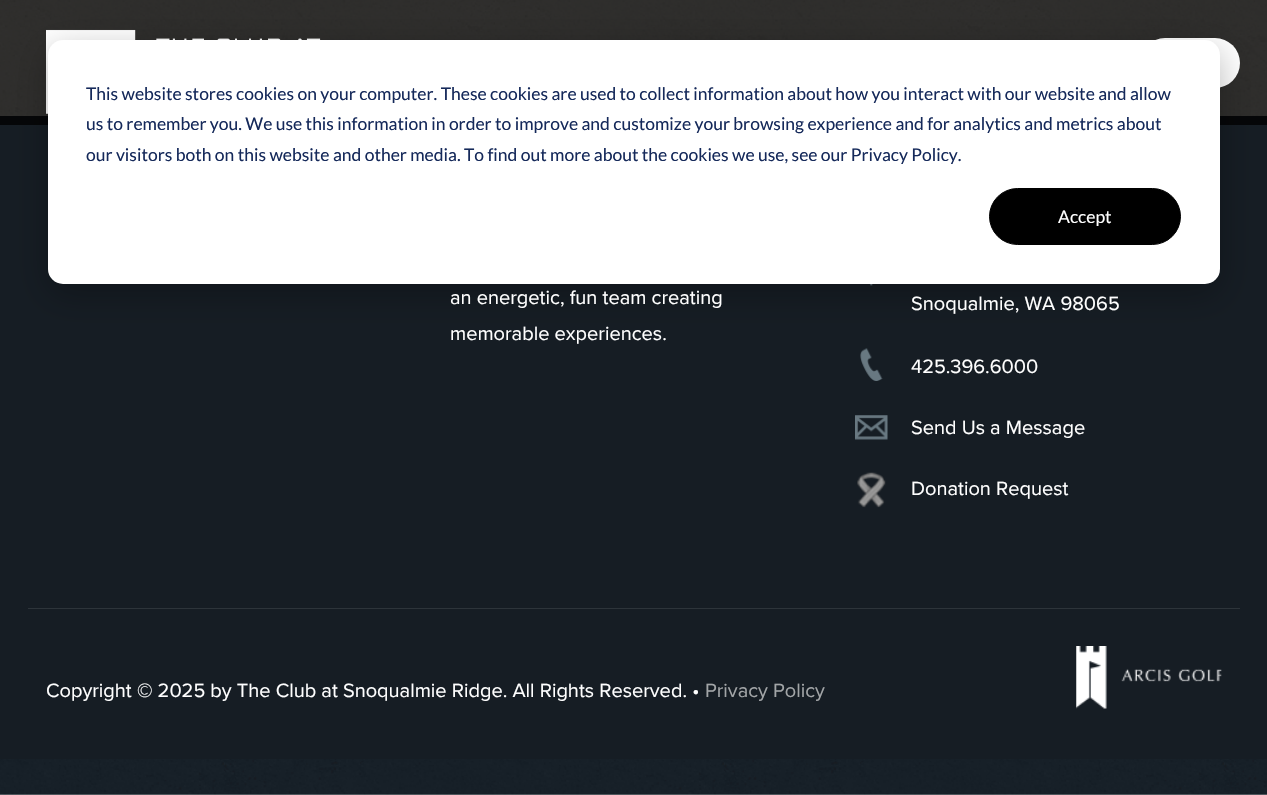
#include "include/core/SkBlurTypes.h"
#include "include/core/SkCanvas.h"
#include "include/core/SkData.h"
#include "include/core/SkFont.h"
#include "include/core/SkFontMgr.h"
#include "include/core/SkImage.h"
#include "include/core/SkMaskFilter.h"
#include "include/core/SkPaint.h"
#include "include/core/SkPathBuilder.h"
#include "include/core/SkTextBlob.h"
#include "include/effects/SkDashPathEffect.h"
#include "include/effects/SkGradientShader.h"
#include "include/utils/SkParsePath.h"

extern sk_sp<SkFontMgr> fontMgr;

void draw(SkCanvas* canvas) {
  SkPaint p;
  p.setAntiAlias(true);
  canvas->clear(SK_ColorWHITE);
  canvas->drawImageRect(SkImages::DeferredFromEncodedData(SkData::MakeFromFileName("images/1.png")), SkRect::MakeLTRB(0, 759, 1267, 795), SkSamplingOptions());
  canvas->drawImageRect(SkImages::DeferredFromEncodedData(SkData::MakeFromFileName("images/2.png")), SkRect::MakeLTRB(0, 0, 1267, 116), SkSamplingOptions());
  p.setColor(SkColorSetRGB(22, 29, 36));
  canvas->drawRect(SkRect::MakeLTRB(0, 116, 1267, 759), p);
  p.setColor(SkColorSetARGB(204, 0, 0, 0));
  canvas->drawRect(SkRect::MakeLTRB(0, 0, 1267, 125), p);
  canvas->drawImageRect(SkImages::DeferredFromEncodedData(SkData::MakeFromFileName("images/3.png")), SkRect::MakeLTRB(46, 29, 321, 114), SkSamplingOptions());
  p.setColor(SK_ColorWHITE);
  canvas->drawRoundRect(SkRect::MakeLTRB(1140, 38, 1240, 88), 25, 25, p);
  canvas->drawImageRect(SkImages::DeferredFromEncodedData(SkData::MakeFromFileName("images/4.png")), SkRect::MakeLTRB(869, 284, 873, 286), SkSamplingOptions());
  p.setColor(SkColorSetARGB(71, 0, 0, 0));
  p.setMaskFilter(SkMaskFilter::MakeBlur(kNormal_SkBlurStyle, 17.5f));
  canvas->drawRoundRect(SkRect::MakeLTRB(48, 50, 1220, 294), 15, 15, p);
  p.setMaskFilter(nullptr);
  p.setColor(SK_ColorWHITE);
  canvas->drawRoundRect(SkRect::MakeLTRB(48, 40, 1220, 284), 15, 15, p);
  p.setColor(SK_ColorBLACK);
  canvas->drawRoundRect(SkRect::MakeLTRB(989.5f, 188.5f, 1180.5f, 244.5f), 28, 28, p);
  p.setStyle(SkPaint::kStroke_Style);
  p.setStrokeWidth(1);
  canvas->drawRoundRect(SkRect::MakeLTRB(989.5f, 188.5f, 1180.5f, 244.5f), 28, 28, p);
  canvas->drawImageRect(SkImages::DeferredFromEncodedData(SkData::MakeFromFileName("images/5.png")), SkRect::MakeLTRB(860, 348, 883, 381), SkSamplingOptions());
  canvas->drawImageRect(SkImages::DeferredFromEncodedData(SkData::MakeFromFileName("images/6.png")), SkRect::MakeLTRB(855, 415, 888, 440), SkSamplingOptions());
  canvas->drawImageRect(SkImages::DeferredFromEncodedData(SkData::MakeFromFileName("images/7.png")), SkRect::MakeLTRB(857, 472, 886, 508), SkSamplingOptions());
  p.setStyle(SkPaint::kFill_Style);
  p.setColor(SkColorSetRGB(45, 52, 58));
  canvas->drawRect(SkRect::MakeLTRB(28, 608, 1240, 609), p);
  canvas->drawImageRect(SkImages::DeferredFromEncodedData(SkData::MakeFromFileName("images/8.png")), SkRect::MakeLTRB(1076, 646, 1222, 709), SkSamplingOptions());
  SkFont font1(fontMgr->matchFamilyStyle("Lato", SkFontStyle::Normal()), 17.5f);
  font1.setSubpixel(true);
  p.setColor(SkColorSetRGB(21, 41, 90));
  canvas->drawString("This website stores cookies on your computer. These cookies are used to collect information about how you interact with our website and allow", 86, 100, font1, p);
  canvas->drawString("us to remember you. We use this information in order to improve and customize your browsing experience and for analytics and metrics about", 86, 130, font1, p);
  canvas->drawString("our visitors both on this website and other media. To find out more about the cookies we use, see our Privacy Policy.", 86, 161, font1, p);
  p.setColor(SK_ColorWHITE);
  canvas->drawString("Accept", 1058, 223, font1, p);
  SkFont font2(fontMgr->matchFamilyStyle("Proxima Nova", SkFontStyle::Normal()), 20);
  font2.setSubpixel(true);
  canvas->drawString("an energetic, fun team creating", 450, 304, font2, p);
  canvas->drawString("memorable experiences.", 450, 340, font2, p);
  canvas->drawString("Snoqualmie, WA 98065", 911, 310, font2, p);
  canvas->drawString("425.396.6000", 911, 373, font2, p);
  canvas->drawString("Send Us a Message", 911, 434, font2, p);
  canvas->drawString("Donation Request", 911, 495, font2, p);
  canvas->drawString("Copyright © 2025 by The Club at Snoqualmie Ridge. All Rights Reserved. •", 46, 697, font2, p);
  p.setColor(SkColorSetRGB(162, 165, 167));
  canvas->drawString("Privacy Policy", 705, 697, font2, p);
}
